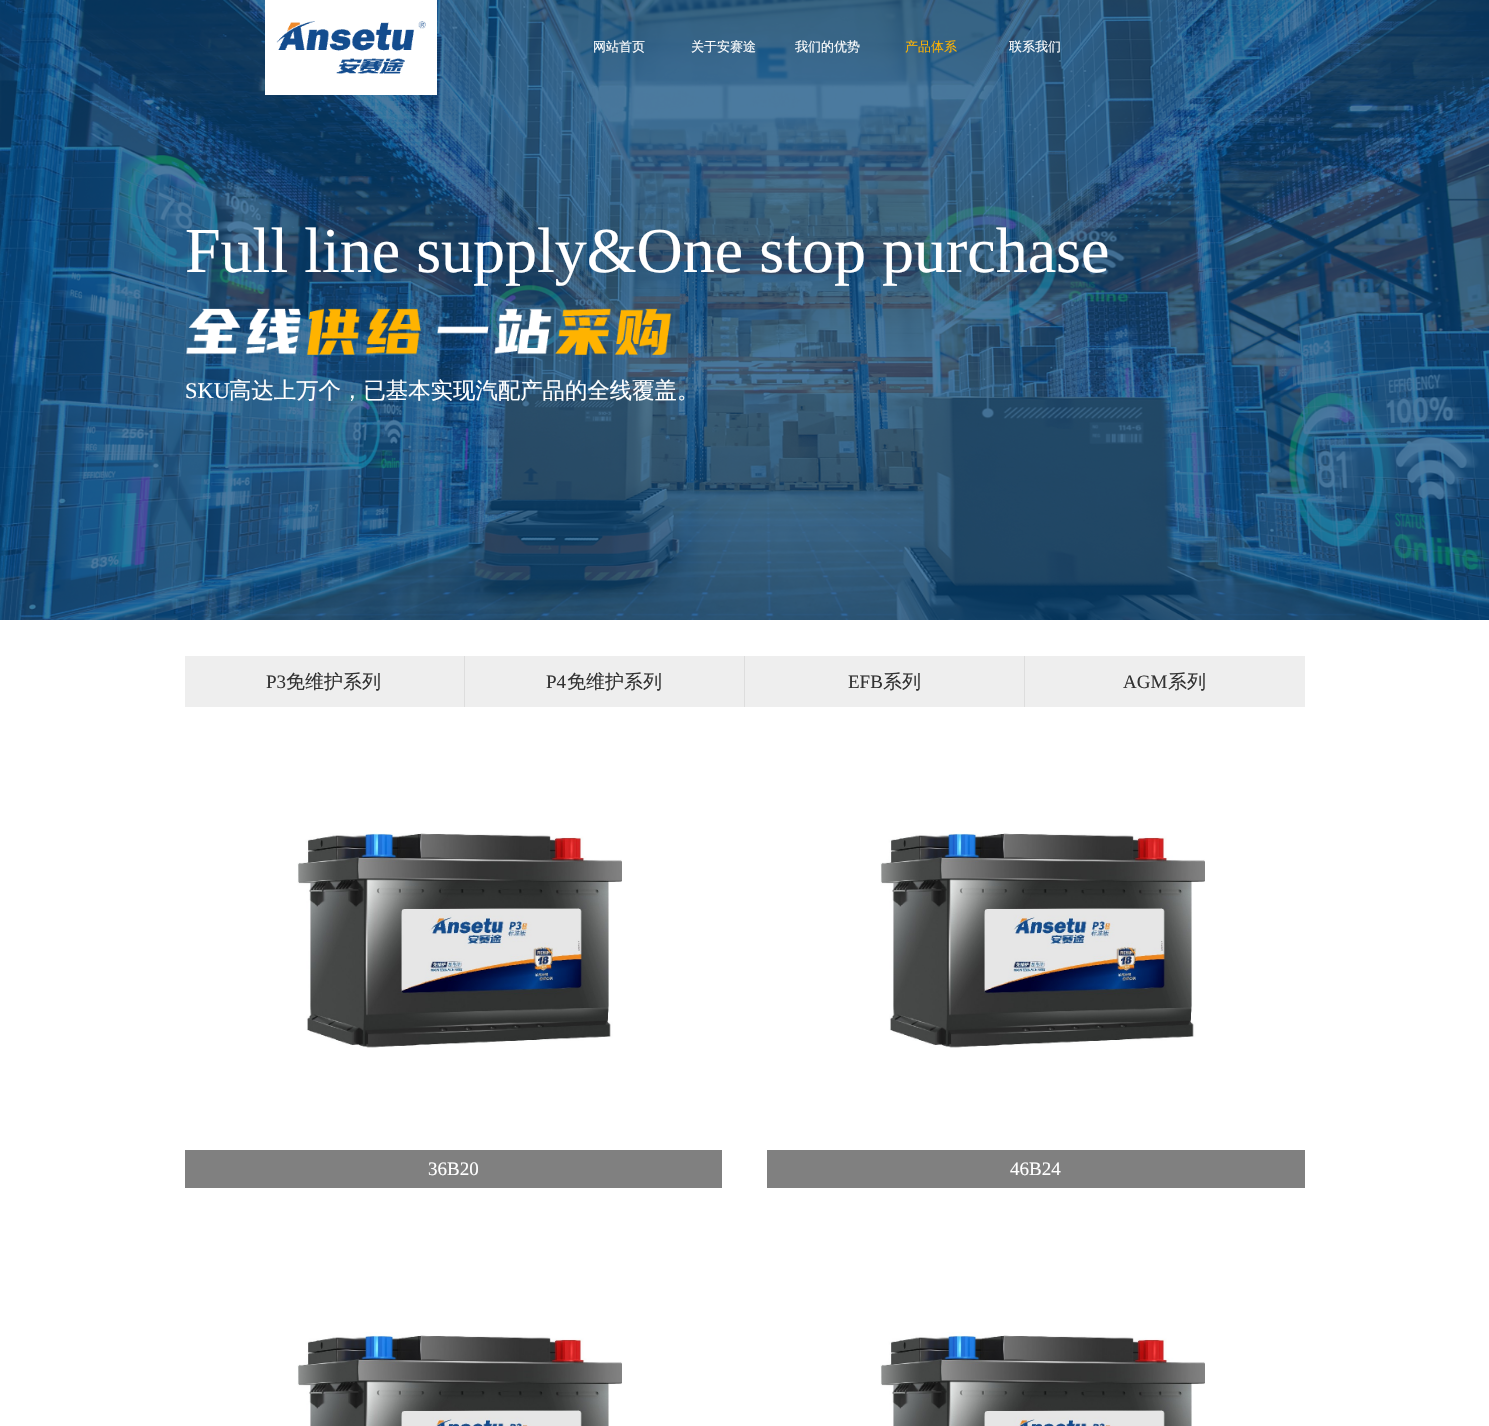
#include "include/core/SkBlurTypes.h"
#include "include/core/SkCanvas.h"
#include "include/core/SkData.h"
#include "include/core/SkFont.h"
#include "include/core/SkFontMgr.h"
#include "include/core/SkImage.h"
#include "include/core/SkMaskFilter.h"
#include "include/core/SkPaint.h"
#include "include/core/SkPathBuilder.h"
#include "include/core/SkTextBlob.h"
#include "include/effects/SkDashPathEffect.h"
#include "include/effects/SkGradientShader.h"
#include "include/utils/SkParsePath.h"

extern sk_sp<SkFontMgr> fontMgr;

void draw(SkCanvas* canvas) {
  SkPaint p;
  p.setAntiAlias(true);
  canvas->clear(SK_ColorWHITE);
  canvas->drawImageRect(SkImages::DeferredFromEncodedData(SkData::MakeFromFileName("images/2.png")), SkRect::MakeLTRB(0, 0, 1489, 620), SkSamplingOptions());
  p.setColor(SK_ColorWHITE);
  canvas->drawRect(SkRect::MakeLTRB(265, 0, 437, 95), p);
  canvas->drawImageRect(SkImages::DeferredFromEncodedData(SkData::MakeFromFileName("images/1.png")), SkRect::MakeLTRB(276, 21, 426, 74), SkSamplingOptions());
  canvas->drawImageRect(SkImages::DeferredFromEncodedData(SkData::MakeFromFileName("images/3.png")), SkRect::MakeLTRB(186, 308, 672, 355), SkSamplingOptions());
  p.setColor(SkColorSetRGB(238, 238, 238));
  canvas->drawRect(SkRect::MakeLTRB(185, 656, 464, 707), p);
  canvas->drawRect(SkRect::MakeLTRB(465, 656, 744, 707), p);
  p.setColor(SkColorSetRGB(221, 221, 221));
  canvas->drawRect(SkRect::MakeLTRB(464, 656, 465, 707), p);
  p.setColor(SkColorSetRGB(238, 238, 238));
  canvas->drawRect(SkRect::MakeLTRB(745, 656, 1024, 707), p);
  p.setColor(SkColorSetRGB(221, 221, 221));
  canvas->drawRect(SkRect::MakeLTRB(744, 656, 745, 707), p);
  p.setColor(SkColorSetRGB(238, 238, 238));
  canvas->drawRect(SkRect::MakeLTRB(1025, 656, 1305, 707), p);
  p.setColor(SkColorSetRGB(221, 221, 221));
  canvas->drawRect(SkRect::MakeLTRB(1024, 656, 1025, 707), p);
  canvas->drawImageRect(SkImages::DeferredFromEncodedData(SkData::MakeFromFileName("images/4.png")), SkRect::MakeLTRB(297, 830, 622, 1048), SkSamplingOptions());
  p.setColor(SkColorSetRGB(128, 128, 128));
  canvas->drawRect(SkRect::MakeLTRB(185, 1150, 722, 1188), p);
  canvas->drawImageRect(SkImages::DeferredFromEncodedData(SkData::MakeFromFileName("images/4.png")), SkRect::MakeLTRB(880, 830, 1205, 1048), SkSamplingOptions());
  canvas->drawRect(SkRect::MakeLTRB(767, 1150, 1305, 1188), p);
  canvas->drawImageRect(SkImages::DeferredFromEncodedData(SkData::MakeFromFileName("images/5.png")), SkRect::MakeLTRB(297, 1332, 622, 1426), SkSamplingOptions());
  canvas->drawImageRect(SkImages::DeferredFromEncodedData(SkData::MakeFromFileName("images/5.png")), SkRect::MakeLTRB(880, 1332, 1205, 1426), SkSamplingOptions());
  SkFont font1(fontMgr->matchFamilyStyle("WenQuanYi Zen Hei", SkFontStyle(500, SkFontStyle::kNormal_Width, SkFontStyle::kUpright_Slant)), 13);
  font1.setSubpixel(true);
  p.setColor(SK_ColorWHITE);
  canvas->drawString("网站首页", 593, 51, font1, p);
  canvas->drawString("关于安赛途", 691, 51, font1, p);
  canvas->drawString("我们的优势", 795, 51, font1, p);
  p.setColor(SkColorSetRGB(255, 179, 0));
  canvas->drawString("产品体系", 905, 51, font1, p);
  p.setColor(SK_ColorWHITE);
  canvas->drawString("联系我们", 1009, 51, font1, p);
  SkFont font2(fontMgr->matchFamilyStyle("Liberation Serif", SkFontStyle::Normal()), 64);
  font2.setSubpixel(true);
  canvas->drawString("Full line supply&One stop purchase", 185, 272, font2, p);
  SkFont font3(fontMgr->matchFamilyStyle("Liberation Serif", SkFontStyle::Normal()), 22.4f);
  font3.setSubpixel(true);
  canvas->drawString("SKU", 185, 398, font3, p);
  SkFont font4(fontMgr->matchFamilyStyle("WenQuanYi Zen Hei", SkFontStyle(500, SkFontStyle::kNormal_Width, SkFontStyle::kUpright_Slant)), 22.4f);
  font4.setSubpixel(true);
  canvas->drawString("高达上万个，已基本实现汽配产品的全线覆盖。", 229, 398, font4, p);
  SkFont font5(fontMgr->matchFamilyStyle("Liberation Serif", SkFontStyle::Normal()), 19);
  font5.setSubpixel(true);
  p.setColor(SkColorSetRGB(51, 51, 51));
  canvas->drawString("P3", 266, 688, font5, p);
  SkFont font6(fontMgr->matchFamilyStyle("WenQuanYi Zen Hei", SkFontStyle(500, SkFontStyle::kNormal_Width, SkFontStyle::kUpright_Slant)), 19);
  font6.setSubpixel(true);
  canvas->drawString("免维护系列", 286, 688, font6, p);
  canvas->drawString("P4", 546, 688, font5, p);
  canvas->drawString("免维护系列", 567, 688, font6, p);
  canvas->drawString("EFB", 848, 688, font5, p);
  canvas->drawString("系列", 883, 688, font6, p);
  canvas->drawString("AGM", 1123, 688, font5, p);
  canvas->drawString("系列", 1168, 688, font6, p);
  p.setColor(SK_ColorWHITE);
  canvas->drawString("36B20", 428, 1175, font5, p);
  canvas->drawString("46B24", 1010, 1175, font5, p);
}
